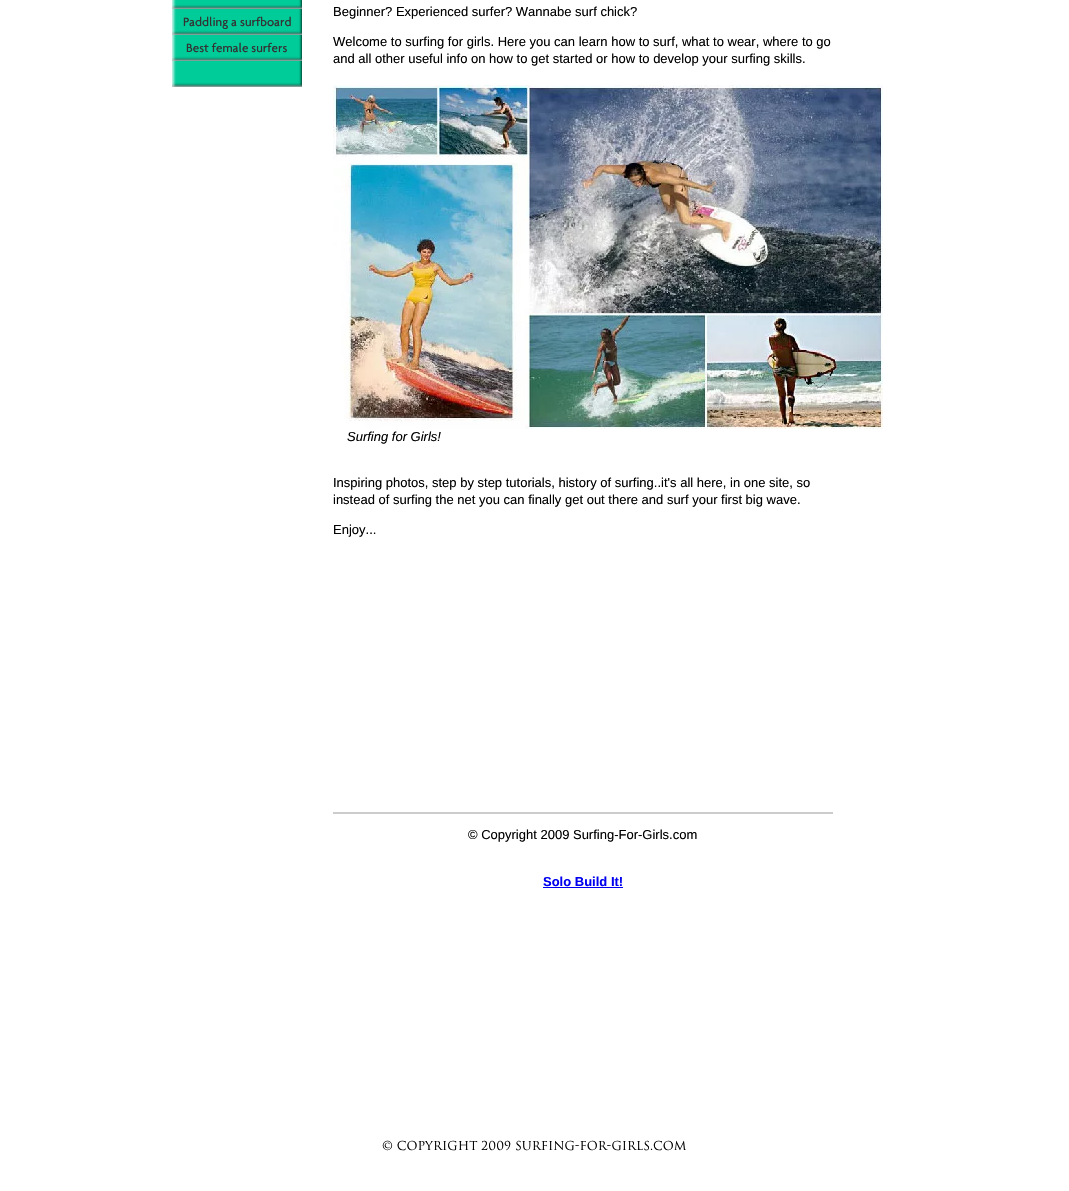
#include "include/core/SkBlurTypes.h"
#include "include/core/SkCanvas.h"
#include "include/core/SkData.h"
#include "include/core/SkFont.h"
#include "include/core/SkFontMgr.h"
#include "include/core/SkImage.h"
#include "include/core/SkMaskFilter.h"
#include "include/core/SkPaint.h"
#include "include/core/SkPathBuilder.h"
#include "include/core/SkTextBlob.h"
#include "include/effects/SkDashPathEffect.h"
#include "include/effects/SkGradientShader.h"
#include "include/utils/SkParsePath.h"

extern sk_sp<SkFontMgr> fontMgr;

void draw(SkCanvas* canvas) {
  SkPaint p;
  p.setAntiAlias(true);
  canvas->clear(SK_ColorWHITE);
  canvas->drawImageRect(SkImages::DeferredFromEncodedData(SkData::MakeFromFileName("images/1.png")), SkRect::MakeLTRB(172, 0, 302, 9), SkSamplingOptions());
  canvas->drawImageRect(SkImages::DeferredFromEncodedData(SkData::MakeFromFileName("images/2.png")), SkRect::MakeLTRB(172, 9, 302, 35), SkSamplingOptions());
  canvas->drawImageRect(SkImages::DeferredFromEncodedData(SkData::MakeFromFileName("images/2.png")), SkRect::MakeLTRB(172, 35, 302, 61), SkSamplingOptions());
  canvas->drawImageRect(SkImages::DeferredFromEncodedData(SkData::MakeFromFileName("images/2.png")), SkRect::MakeLTRB(172, 61, 302, 87), SkSamplingOptions());
  canvas->drawImageRect(SkImages::DeferredFromEncodedData(SkData::MakeFromFileName("images/3.png")), SkRect::MakeLTRB(333, 85, 883, 429), SkSamplingOptions());
  p.setColor(SkColorSetRGB(204, 204, 204));
  canvas->drawRect(SkRect::MakeLTRB(333, 812, 833, 814), p);
  p.setColor(SkColorSetRGB(0, 0, 238));
  canvas->drawRect(SkRect::MakeLTRB(543, 887, 623, 888), p);
  SkFont font1(fontMgr->matchFamilyStyle("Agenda", SkFontStyle::Normal()), 13);
  font1.setSubpixel(true);
  p.setColor(SkColorSetRGB(51, 51, 51));
  canvas->drawString("Paddling a surfboard", 183, 26, font1, p);
  canvas->drawString("Best female surfers", 186, 52, font1, p);
  SkFont font2(fontMgr->matchFamilyStyle("Liberation Sans", SkFontStyle::Normal()), 13);
  font2.setSubpixel(true);
  p.setColor(SK_ColorBLACK);
  canvas->drawString("Beginner? Experienced surfer? Wannabe surf chick?", 333, 16, font2, p);
  canvas->drawString("Welcome to surfing for girls. Here you can learn how to surf, what to wear, where to go", 333, 46, font2, p);
  canvas->drawString("and all other useful info on how to get started or how to develop your surfing skills.", 333, 63, font2, p);
  SkFont font3(fontMgr->matchFamilyStyle("Liberation Sans", SkFontStyle::Italic()), 13);
  font3.setSubpixel(true);
  canvas->drawString("Surfing for Girls!", 347, 441, font3, p);
  canvas->drawString("Inspiring photos, step by step tutorials, history of surfing..it's all here, in one site, so", 333, 487, font2, p);
  canvas->drawString("instead of surfing the net you can finally get out there and surf your first big wave.", 333, 504, font2, p);
  canvas->drawString("Enjoy...", 333, 534, font2, p);
  canvas->drawString("© Copyright 2009 Surfing-For-Girls.com", 468, 839, font2, p);
  SkFont font4(fontMgr->matchFamilyStyle("Liberation Sans", SkFontStyle::Bold()), 13);
  font4.setSubpixel(true);
  p.setColor(SkColorSetRGB(0, 0, 238));
  canvas->drawString("Solo Build It!", 543, 886, font4, p);
  SkFont font5(fontMgr->matchFamilyStyle("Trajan", SkFontStyle::Normal()), 12);
  font5.setSubpixel(true);
  p.setColor(SK_ColorBLACK);
  canvas->drawString("© Copyright 2009 Surfing-For-Girls.com", 382, 1150, font5, p);
}
